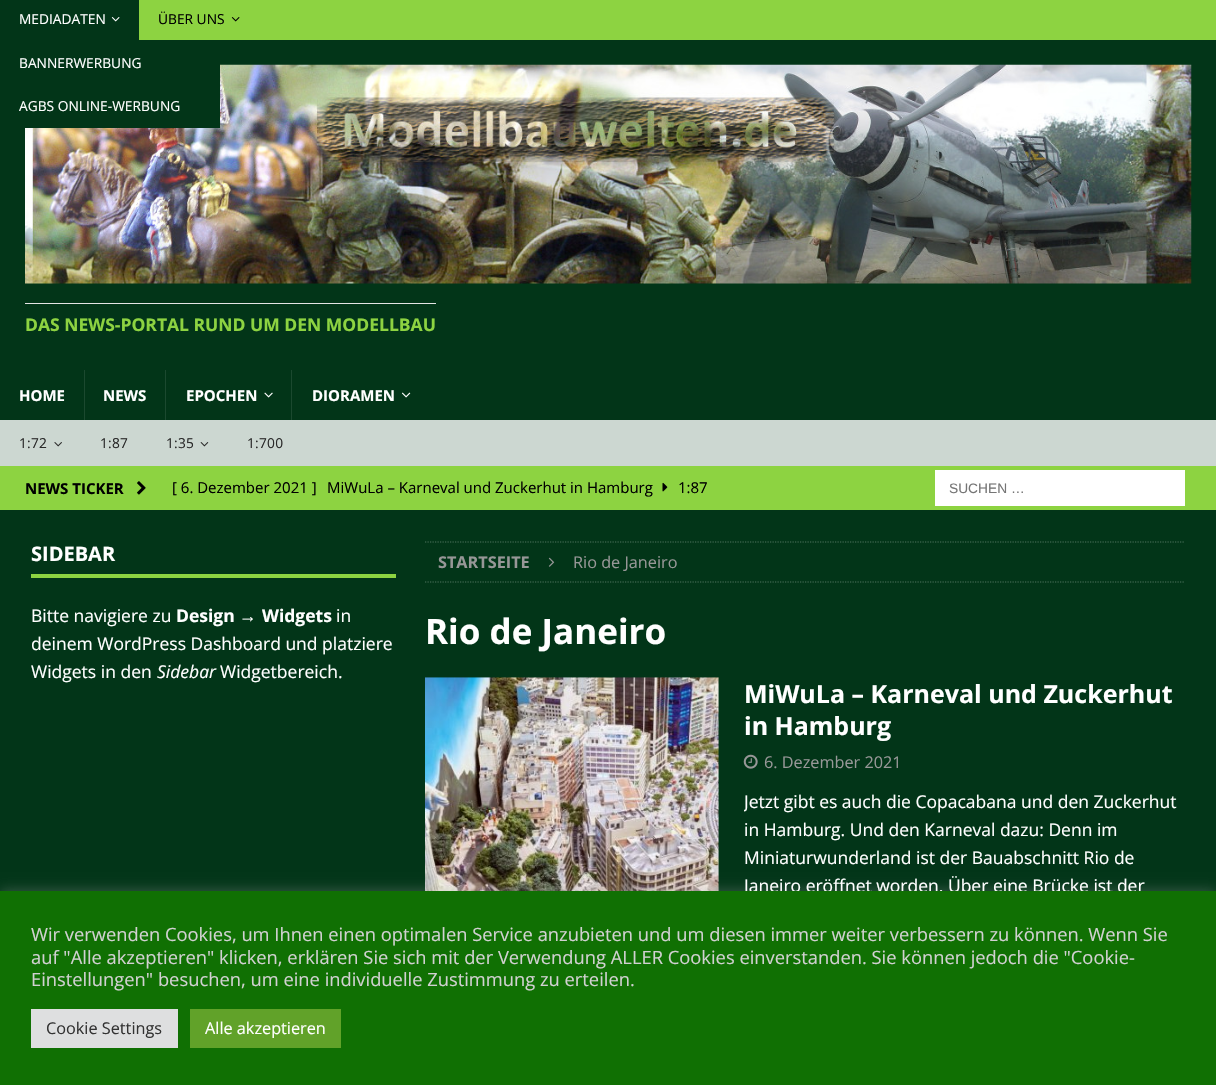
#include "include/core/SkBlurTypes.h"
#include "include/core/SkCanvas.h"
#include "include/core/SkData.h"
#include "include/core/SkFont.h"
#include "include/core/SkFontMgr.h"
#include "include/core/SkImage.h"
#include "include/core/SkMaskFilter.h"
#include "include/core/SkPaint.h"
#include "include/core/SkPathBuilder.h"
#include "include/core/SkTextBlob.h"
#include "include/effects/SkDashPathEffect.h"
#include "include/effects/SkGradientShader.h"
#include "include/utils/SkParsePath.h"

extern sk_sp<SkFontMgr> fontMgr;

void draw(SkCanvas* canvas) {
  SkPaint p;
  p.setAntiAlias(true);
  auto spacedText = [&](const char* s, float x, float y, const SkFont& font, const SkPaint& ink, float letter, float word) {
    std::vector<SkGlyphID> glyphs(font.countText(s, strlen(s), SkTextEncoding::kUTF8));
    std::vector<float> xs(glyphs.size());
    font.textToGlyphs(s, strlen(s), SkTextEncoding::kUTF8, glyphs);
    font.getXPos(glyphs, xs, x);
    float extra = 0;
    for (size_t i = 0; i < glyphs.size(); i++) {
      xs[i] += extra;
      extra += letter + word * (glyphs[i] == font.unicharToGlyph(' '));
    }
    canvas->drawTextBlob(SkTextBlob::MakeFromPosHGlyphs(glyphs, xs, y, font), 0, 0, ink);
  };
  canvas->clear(SkColorSetRGB(2, 53, 24));
  p.setColor(SkColorSetRGB(141, 211, 65));
  canvas->drawRect(SkRect::MakeLTRB(139, 0, 1216, 40), p);
  canvas->drawImageRect(SkImages::DeferredFromEncodedData(SkData::MakeFromFileName("images/1.png")), SkRect::MakeLTRB(111, 17, 120, 22), SkSamplingOptions());
  canvas->drawImageRect(SkImages::DeferredFromEncodedData(SkData::MakeFromFileName("images/3.png")), SkRect::MakeLTRB(25, 64, 1192, 284), SkSamplingOptions());
  p.setColor(SkColorSetRGB(2, 53, 24));
  canvas->drawRect(SkRect::MakeLTRB(25, 64, 220, 128), p);
  canvas->drawImageRect(SkImages::DeferredFromEncodedData(SkData::MakeFromFileName("images/2.png")), SkRect::MakeLTRB(231, 17, 240, 22), SkSamplingOptions());
  p.setColor(SkColorSetRGB(229, 229, 229));
  canvas->drawRect(SkRect::MakeLTRB(25, 303, 436, 304), p);
  p.setColor(SkColorSetRGB(27, 73, 47));
  canvas->drawRect(SkRect::MakeLTRB(84, 370, 85, 420), p);
  canvas->drawRect(SkRect::MakeLTRB(165, 370, 166, 420), p);
  canvas->drawImageRect(SkImages::DeferredFromEncodedData(SkData::MakeFromFileName("images/4.png")), SkRect::MakeLTRB(264, 392, 273, 398), SkSamplingOptions());
  canvas->drawRect(SkRect::MakeLTRB(291, 370, 292, 420), p);
  canvas->drawImageRect(SkImages::DeferredFromEncodedData(SkData::MakeFromFileName("images/5.png")), SkRect::MakeLTRB(401, 392, 411, 398), SkSamplingOptions());
  p.setColor(SkColorSetRGB(204, 215, 209));
  canvas->drawRect(SkRect::MakeLTRB(0, 420, 1216, 466), p);
  canvas->drawImageRect(SkImages::DeferredFromEncodedData(SkData::MakeFromFileName("images/6.png")), SkRect::MakeLTRB(54, 442, 62, 447), SkSamplingOptions());
  canvas->drawImageRect(SkImages::DeferredFromEncodedData(SkData::MakeFromFileName("images/7.png")), SkRect::MakeLTRB(200, 442, 209, 447), SkSamplingOptions());
  p.setColor(SkColorSetRGB(141, 211, 65));
  canvas->drawRect(SkRect::MakeLTRB(0, 466, 1216, 510), p);
  canvas->drawImageRect(SkImages::DeferredFromEncodedData(SkData::MakeFromFileName("images/8.png")), SkRect::MakeLTRB(137, 481, 146, 495), SkSamplingOptions());
  canvas->drawImageRect(SkImages::DeferredFromEncodedData(SkData::MakeFromFileName("images/9.png")), SkRect::MakeLTRB(662, 482, 668, 492), SkSamplingOptions());
  p.setColor(SK_ColorWHITE);
  canvas->drawRect(SkRect::MakeLTRB(935, 470, 1185, 506), p);
  p.setColor(SkColorSetRGB(141, 211, 65));
  canvas->drawRect(SkRect::MakeLTRB(31, 574, 396, 578), p);
  p.setStyle(SkPaint::kStroke_Style);
  p.setStrokeWidth(1.2f);
  p.setColor(SkColorSetRGB(78, 114, 93));
  p.setPathEffect(SkDashPathEffect::Make({{1.25f, 1.25f}}, 0));
  canvas->drawPath(SkPathBuilder().moveTo(425, 542).lineTo(1185, 542).detach(), p);
  p.setPathEffect(nullptr);
  p.setPathEffect(SkDashPathEffect::Make({{1.25f, 1.25f}}, 0));
  canvas->drawPath(SkPathBuilder().moveTo(425, 582).lineTo(1185, 582).detach(), p);
  p.setPathEffect(nullptr);
  canvas->drawImageRect(SkImages::DeferredFromEncodedData(SkData::MakeFromFileName("images/10.png")), SkRect::MakeLTRB(548, 557, 555, 567), SkSamplingOptions());
  canvas->drawImageRect(SkImages::DeferredFromEncodedData(SkData::MakeFromFileName("images/11.png")), SkRect::MakeLTRB(425, 677, 719, 891), SkSamplingOptions());
  canvas->drawImageRect(SkImages::DeferredFromEncodedData(SkData::MakeFromFileName("images/12.png")), SkRect::MakeLTRB(743, 754, 758, 769), SkSamplingOptions());
  p.setStyle(SkPaint::kFill_Style);
  p.setColor(SkColorSetARGB(77, 172, 171, 171));
  p.setMaskFilter(SkMaskFilter::MakeBlur(kNormal_SkBlurStyle, 6));
  canvas->drawRect(SkRect::MakeLTRB(0, 890, 1216, 1084), p);
  p.setMaskFilter(nullptr);
  SkFont font1(fontMgr->matchFamilyStyle("Open Sans", SkFontStyle::Normal()), 13.75f);
  font1.setSubpixel(true);
  p.setColor(SK_ColorWHITE);
  canvas->drawString("MEDIADATEN", 19, 24, font1, p);
  canvas->drawString("BANNERWERBUNG", 19, 68, font1, p);
  canvas->drawString("AGBS ONLINE-WERBUNG", 19, 111, font1, p);
  p.setColor(SK_ColorBLACK);
  canvas->drawString("ÜBER UNS", 158, 24, font1, p);
  SkFont font2(fontMgr->matchFamilyStyle("Open Sans", SkFontStyle::Bold()), 17.5f);
  font2.setSubpixel(true);
  p.setColor(SkColorSetRGB(141, 211, 65));
  canvas->drawString("DAS NEWS-PORTAL RUND UM DEN MODELLBAU", 25, 331, font2, p);
  SkFont font3(fontMgr->matchFamilyStyle("Open Sans", SkFontStyle::Bold()), 15);
  font3.setSubpixel(true);
  p.setColor(SK_ColorWHITE);
  canvas->drawString("HOME", 19, 401, font3, p);
  canvas->drawString("NEWS", 103, 401, font3, p);
  canvas->drawString("EPOCHEN", 186, 401, font3, p);
  canvas->drawString("DIORAMEN", 312, 401, font3, p);
  p.setColor(SkColorSetRGB(42, 42, 42));
  spacedText("1:72", 19, 448, font1, p, 0.25f, 0);
  spacedText("1:87", 100, 448, font1, p, 0.25f, 0);
  spacedText("1:35", 166, 448, font1, p, 0.25f, 0);
  spacedText("1:700", 247, 448, font1, p, 0.25f, 0);
  p.setColor(SK_ColorBLACK);
  canvas->drawString("NEWS TICKER", 25, 494, font3, p);
  SkFont font4(fontMgr->matchFamilyStyle("Open Sans", SkFontStyle::Normal()), 15);
  font4.setSubpixel(true);
  canvas->drawString("[ 6. Dezember 2021 ]", 172, 493, font4, p);
  canvas->drawString("MiWuLa – Karneval und Zuckerhut in Hamburg", 327, 493, font4, p);
  canvas->drawString("1:87", 678, 493, font4, p);
  SkFont font5(fontMgr->matchFamilyStyle("Liberation Sans", SkFontStyle::Normal()), 13.75f);
  font5.setSubpixel(true);
  p.setColor(SkColorSetRGB(117, 117, 117));
  canvas->drawString("SUCHEN …", 949, 493, font5, p);
  SkFont font6(fontMgr->matchFamilyStyle("Open Sans", SkFontStyle::Bold()), 20);
  font6.setSubpixel(true);
  p.setColor(SK_ColorWHITE);
  canvas->drawString("SIDEBAR", 31, 561, font6, p);
  SkFont font7(fontMgr->matchFamilyStyle("Open Sans", SkFontStyle::Normal()), 17.5f);
  font7.setSubpixel(true);
  canvas->drawString("Bitte navigiere zu", 31, 622, font7, p);
  canvas->drawString("Design", 176, 622, font2, p);
  SkFont font8(fontMgr->matchFamilyStyle("Liberation Sans", SkFontStyle::Bold()), 17.5f);
  font8.setSubpixel(true);
  canvas->drawString("→", 239, 622, font8, p);
  canvas->drawString("Widgets", 262, 622, font2, p);
  canvas->drawString("in", 336, 622, font7, p);
  canvas->drawString("deinem WordPress Dashboard und platziere", 31, 650, font7, p);
  canvas->drawString("Widgets in den", 31, 678, font7, p);
  SkFont font9(fontMgr->matchFamilyStyle("Open Sans", SkFontStyle::Italic()), 17.5f);
  font9.setSubpixel(true);
  canvas->drawString("Sidebar", 157, 678, font9, p);
  canvas->drawString("Widgetbereich.", 220, 678, font7, p);
  SkFont font10(fontMgr->matchFamilyStyle("Open Sans", SkFontStyle::Bold()), 16.25f);
  font10.setSubpixel(true);
  p.setColor(SkColorSetRGB(151, 151, 151));
  canvas->drawString("STARTSEITE", 438, 568, font10, p);
  SkFont font11(fontMgr->matchFamilyStyle("Open Sans", SkFontStyle::Normal()), 16.25f);
  font11.setSubpixel(true);
  canvas->drawString("Rio de Janeiro", 573, 568, font11, p);
  SkFont font12(fontMgr->matchFamilyStyle("Open Sans", SkFontStyle::Bold()), 35);
  font12.setSubpixel(true);
  p.setColor(SK_ColorWHITE);
  canvas->drawString("Rio de Janeiro", 425, 644, font12, p);
  SkFont font13(fontMgr->matchFamilyStyle("Open Sans", SkFontStyle::Bold()), 25);
  font13.setSubpixel(true);
  canvas->drawString("MiWuLa – Karneval und Zuckerhut", 744, 703, font13, p);
  canvas->drawString("in Hamburg", 744, 735, font13, p);
  p.setColor(SkColorSetRGB(151, 151, 151));
  canvas->drawString("6. Dezember 2021", 764, 768, font11, p);
  canvas->save();
  canvas->clipRect(SkRect::MakeLTRB(744, 788, 1185, 928));
  p.setColor(SK_ColorWHITE);
  canvas->drawString("Jetzt gibt es auch die Copacabana und den Zuckerhut", 744, 808, font7, p);
  canvas->restore();
  canvas->drawString("in Hamburg. Und den Karneval dazu: Denn im", 744, 836, font7, p);
  canvas->drawString("Miniaturwunderland ist der Bauabschnitt Rio de", 744, 864, font7, p);
  canvas->drawString("Janeiro eröffnet worden. Über eine Brücke ist der", 744, 892, font7, p);
  p.setColor(SkColorSetRGB(16, 112, 3));
  canvas->drawRect(SkRect::MakeLTRB(0, 891, 1216, 1085), p);
  SkFont font14(fontMgr->matchFamilyStyle("Open Sans", SkFontStyle::Normal()), 18.33f);
  font14.setSubpixel(true);
  p.setColor(SkColorSetRGB(209, 209, 209));
  canvas->drawString("Wir verwenden Cookies, um Ihnen einen optimalen Service anzubieten und um diesen immer weiter verbessern zu können. Wenn Sie", 31, 941, font14, p);
  canvas->drawString("auf \"Alle akzeptieren\" klicken, erklären Sie sich mit der Verwendung ALLER Cookies einverstanden. Sie können jedoch die \"Cookie-", 31, 964, font14, p);
  canvas->drawString("Einstellungen\" besuchen, um eine individuelle Zustimmung zu erteilen.", 31, 986, font14, p);
  p.setColor(SkColorSetRGB(222, 223, 224));
  canvas->drawRect(SkRect::MakeLTRB(31, 1009, 178, 1048), p);
  p.setColor(SkColorSetRGB(51, 51, 51));
  canvas->drawString("Cookie Settings", 46, 1034, font11, p);
  p.setColor(SkColorSetRGB(97, 162, 41));
  canvas->drawRect(SkRect::MakeLTRB(190, 1009, 341, 1048), p);
  p.setColor(SK_ColorWHITE);
  canvas->drawString("Alle akzeptieren", 205, 1034, font11, p);
}
